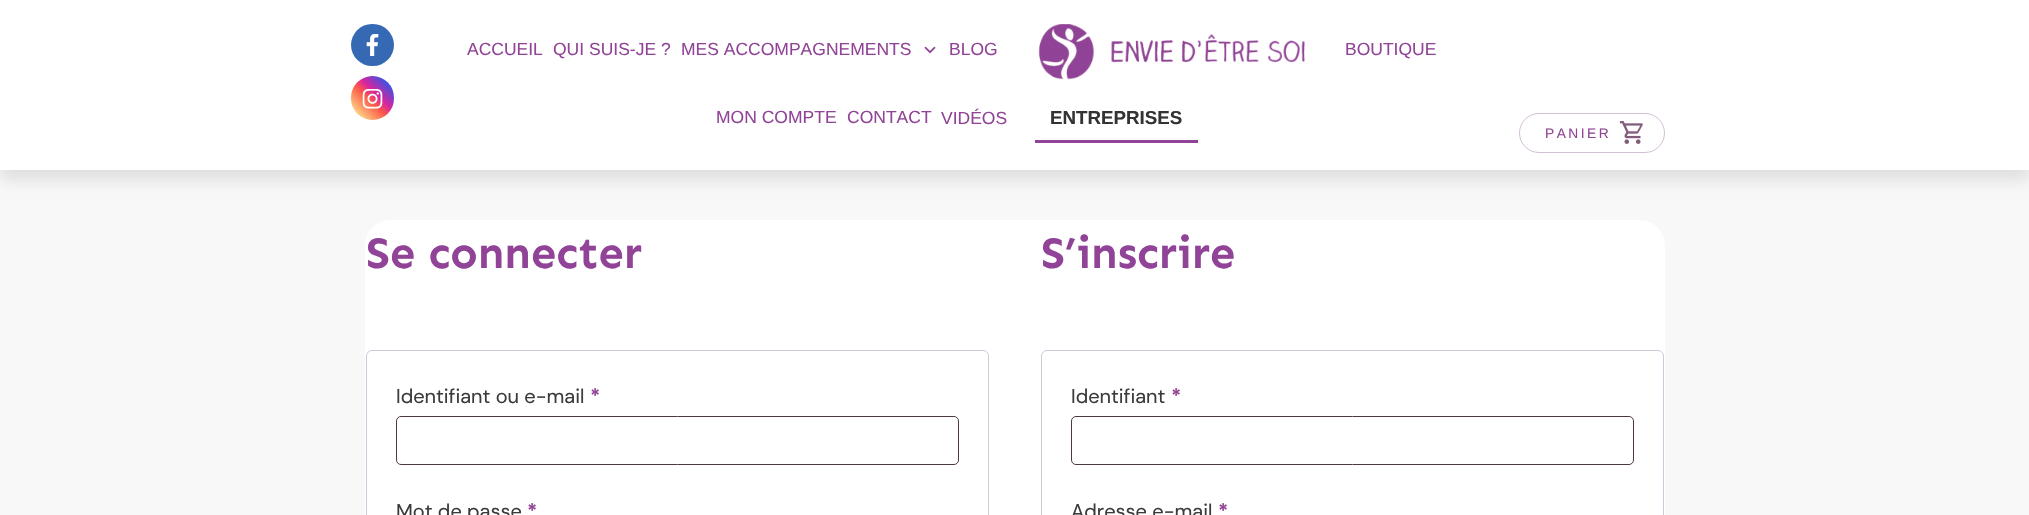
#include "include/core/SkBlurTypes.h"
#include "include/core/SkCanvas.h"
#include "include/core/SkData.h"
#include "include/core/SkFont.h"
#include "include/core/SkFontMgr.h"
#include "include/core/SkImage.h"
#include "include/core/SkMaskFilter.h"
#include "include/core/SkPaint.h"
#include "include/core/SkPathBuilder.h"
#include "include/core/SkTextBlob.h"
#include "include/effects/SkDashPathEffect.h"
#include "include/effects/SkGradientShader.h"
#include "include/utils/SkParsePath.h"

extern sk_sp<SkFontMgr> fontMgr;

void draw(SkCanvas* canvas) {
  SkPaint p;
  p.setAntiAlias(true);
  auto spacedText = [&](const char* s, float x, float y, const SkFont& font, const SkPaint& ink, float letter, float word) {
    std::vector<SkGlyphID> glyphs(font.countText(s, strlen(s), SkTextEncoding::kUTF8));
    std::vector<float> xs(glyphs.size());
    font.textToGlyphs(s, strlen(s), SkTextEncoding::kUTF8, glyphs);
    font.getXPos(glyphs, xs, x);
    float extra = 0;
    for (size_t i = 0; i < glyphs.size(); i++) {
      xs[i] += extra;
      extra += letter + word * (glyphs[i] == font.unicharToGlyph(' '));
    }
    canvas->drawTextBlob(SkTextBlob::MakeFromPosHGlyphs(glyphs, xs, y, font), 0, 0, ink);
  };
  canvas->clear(SkColorSetRGB(248, 248, 248));
  p.setColor(SkColorSetARGB(26, 0, 0, 0));
  p.setMaskFilter(SkMaskFilter::MakeBlur(kNormal_SkBlurStyle, 7.5f));
  canvas->drawRect(SkRect::MakeLTRB(0, 10, 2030, 180), p);
  p.setMaskFilter(nullptr);
  p.setColor(SK_ColorWHITE);
  canvas->drawRect(SkRect::MakeLTRB(0, 0, 2029, 170), p);
  p.setColor(SkColorSetRGB(53, 105, 180));
  canvas->drawRoundRect(SkRect::MakeLTRB(351, 24, 394, 66), 21, 21, p);
  canvas->drawImageRect(SkImages::DeferredFromEncodedData(SkData::MakeFromFileName("images/1.png")), SkRect::MakeLTRB(366, 34, 379, 56), SkSamplingOptions());
  {
    const SkColor colors[] = {SkColorSetRGB(253, 244, 151), SkColorSetRGB(253, 244, 151), SkColorSetRGB(253, 89, 73), SkColorSetRGB(214, 36, 159), SkColorSetRGB(40, 90, 235)};
    const float stops[] = {0, 0.05f, 0.45f, 0.6f, 0.9f};
    const SkPoint ends[] = {{351, 120}, {394, 77}};
    p.setShader(SkGradientShader::MakeLinear(ends, colors, stops, 5, SkTileMode::kClamp));
    p.setAlpha(255);
  }
  canvas->drawRoundRect(SkRect::MakeLTRB(351, 76, 394, 120), 21.5f, 21.5f, p);
  canvas->drawImageRect(SkImages::DeferredFromEncodedData(SkData::MakeFromFileName("images/2.png")), SkRect::MakeLTRB(362, 89, 383, 109), SkSamplingOptions());
  canvas->drawImageRect(SkImages::DeferredFromEncodedData(SkData::MakeFromFileName("images/3.png")), SkRect::MakeLTRB(924, 46, 936, 54), SkSamplingOptions());
  canvas->drawImageRect(SkImages::DeferredFromEncodedData(SkData::MakeFromFileName("images/4.png")), SkRect::MakeLTRB(1038, 24, 1305, 80), SkSamplingOptions());
  p.setShader(nullptr);
  p.setColor(SkColorSetRGB(145, 68, 151));
  canvas->drawRect(SkRect::MakeLTRB(1035, 140, 1198, 143), p);
  p.setStyle(SkPaint::kStroke_Style);
  p.setStrokeWidth(1);
  p.setColor(SkColorSetRGB(211, 191, 213));
  canvas->drawRoundRect(SkRect::MakeLTRB(1519.5f, 113.5f, 1664.5f, 152.5f), 19.5f, 19.5f, p);
  canvas->drawImageRect(SkImages::DeferredFromEncodedData(SkData::MakeFromFileName("images/5.png")), SkRect::MakeLTRB(1619, 121, 1643, 144), SkSamplingOptions());
  p.setStyle(SkPaint::kFill_Style);
  p.setColor(SK_ColorWHITE);
  canvas->drawRoundRect(SkRect::MakeLTRB(365, 220, 1665, 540), 25, 25, p);
  p.setStyle(SkPaint::kStroke_Style);
  p.setColor(SkColorSetRGB(207, 200, 216));
  canvas->drawRoundRect(SkRect::MakeLTRB(366.5f, 350.5f, 988.5f, 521.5f), 5.5f, 5.5f, p);
  p.setColor(SkColorSetRGB(77, 57, 57));
  canvas->drawRoundRect(SkRect::MakeLTRB(396.5f, 416.5f, 958.5f, 464.5f), 4.5f, 4.5f, p);
  p.setColor(SkColorSetRGB(207, 200, 216));
  canvas->drawRoundRect(SkRect::MakeLTRB(1041.5f, 350.5f, 1663.5f, 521.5f), 5.5f, 5.5f, p);
  p.setColor(SkColorSetRGB(77, 57, 57));
  canvas->drawRoundRect(SkRect::MakeLTRB(1071.5f, 416.5f, 1633.5f, 464.5f), 4.5f, 4.5f, p);
  SkFont font1(fontMgr->matchFamilyStyle("Liberation Sans", SkFontStyle::Normal()), 17.5f);
  font1.setSubpixel(true);
  p.setStyle(SkPaint::kFill_Style);
  p.setColor(SkColorSetRGB(145, 68, 151));
  canvas->drawString("ACCUEIL", 467, 55, font1, p);
  canvas->drawString("QUI SUIS-JE ?", 553, 55, font1, p);
  canvas->drawString("MES ACCOMPAGNEMENTS", 681, 55, font1, p);
  canvas->drawString("BLOG", 949, 55, font1, p);
  canvas->drawString("BOUTIQUE", 1345, 55, font1, p);
  canvas->drawString("MON COMPTE", 716, 123, font1, p);
  canvas->drawString("CONTACT", 847, 123, font1, p);
  canvas->drawString("VIDÉOS", 941, 124, font1, p);
  SkFont font2(fontMgr->matchFamilyStyle("Liberation Sans", SkFontStyle::Bold()), 18.75f);
  font2.setSubpixel(true);
  p.setColor(SkColorSetRGB(51, 51, 51));
  canvas->drawString("ENTREPRISES", 1050, 124, font2, p);
  SkFont font3(fontMgr->matchFamilyStyle("Liberation Sans", SkFontStyle::Normal()), 13.75f);
  font3.setSubpixel(true);
  p.setColor(SkColorSetRGB(145, 68, 151));
  spacedText("PANIER", 1545, 138, font3, p, 2.5f, 0);
  SkFont font4(fontMgr->matchFamilyStyle("Sen", SkFontStyle::Bold()), 45);
  font4.setSubpixel(true);
  canvas->drawString("Se connecter", 366, 268, font4, p);
  SkFont font5(fontMgr->matchFamilyStyle("DM Sans", SkFontStyle::Normal()), 20);
  font5.setSubpixel(true);
  p.setColor(SkColorSetRGB(59, 59, 59));
  canvas->drawString("Identifiant ou e-mail", 396, 403, font5, p);
  SkFont font6(fontMgr->matchFamilyStyle("DM Sans", SkFontStyle::Bold()), 20);
  font6.setSubpixel(true);
  p.setColor(SkColorSetRGB(145, 68, 151));
  canvas->drawString("*", 590, 403, font6, p);
  p.setColor(SkColorSetRGB(59, 59, 59));
  canvas->drawString("Mot de passe", 396, 518, font5, p);
  p.setColor(SkColorSetRGB(145, 68, 151));
  canvas->drawString("*", 527, 518, font6, p);
  canvas->drawString("S’inscrire", 1041, 268, font4, p);
  p.setColor(SkColorSetRGB(59, 59, 59));
  canvas->drawString("Identifiant", 1071, 403, font5, p);
  p.setColor(SkColorSetRGB(145, 68, 151));
  canvas->drawString("*", 1171, 403, font6, p);
  p.setColor(SkColorSetRGB(59, 59, 59));
  canvas->drawString("Adresse e-mail", 1071, 518, font5, p);
  p.setColor(SkColorSetRGB(145, 68, 151));
  canvas->drawString("*", 1218, 518, font6, p);
}
